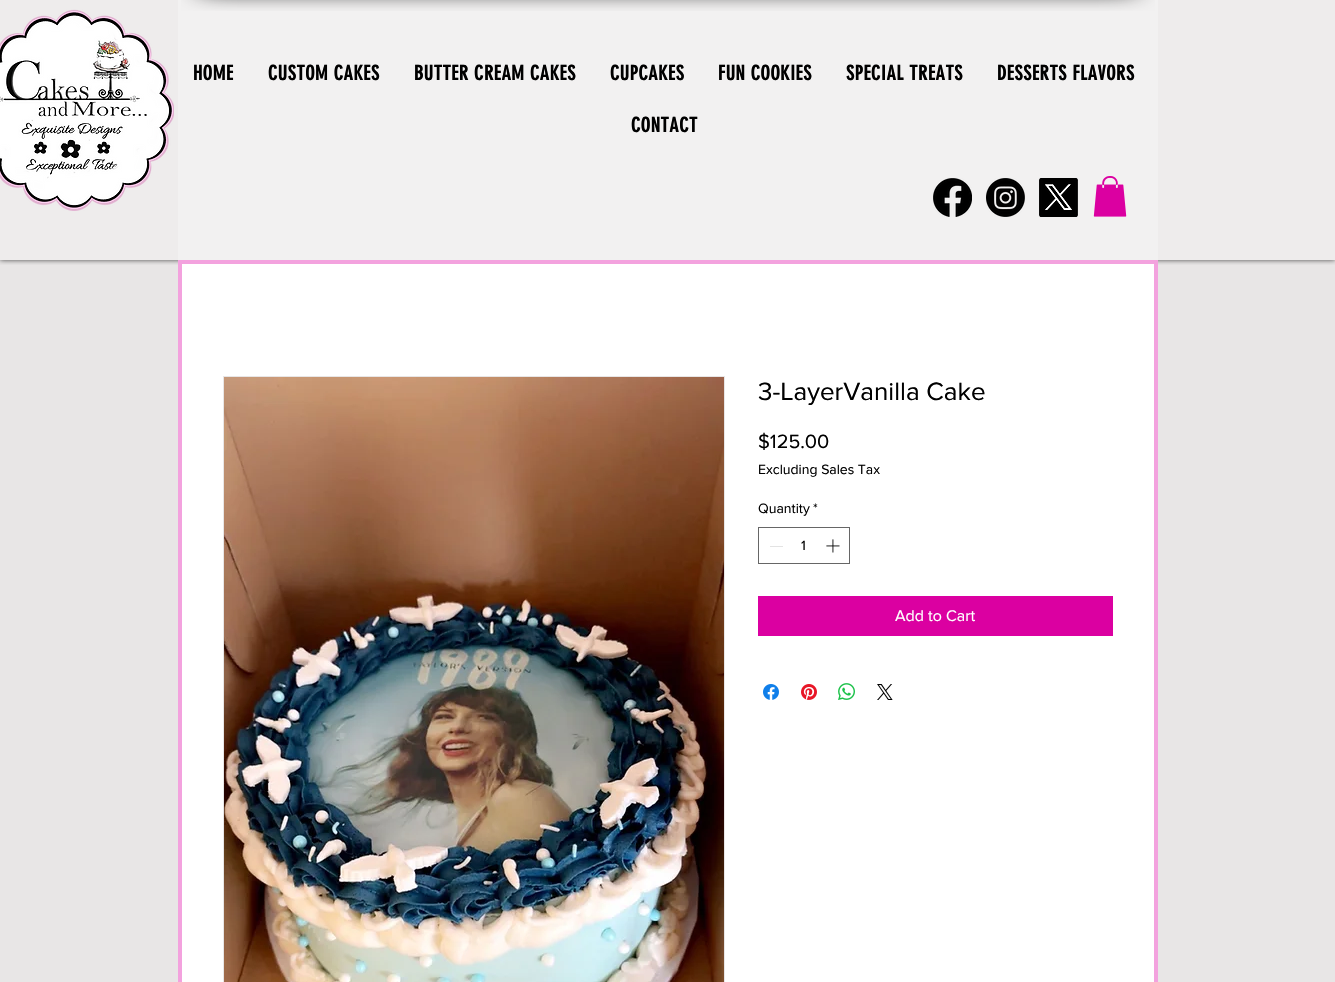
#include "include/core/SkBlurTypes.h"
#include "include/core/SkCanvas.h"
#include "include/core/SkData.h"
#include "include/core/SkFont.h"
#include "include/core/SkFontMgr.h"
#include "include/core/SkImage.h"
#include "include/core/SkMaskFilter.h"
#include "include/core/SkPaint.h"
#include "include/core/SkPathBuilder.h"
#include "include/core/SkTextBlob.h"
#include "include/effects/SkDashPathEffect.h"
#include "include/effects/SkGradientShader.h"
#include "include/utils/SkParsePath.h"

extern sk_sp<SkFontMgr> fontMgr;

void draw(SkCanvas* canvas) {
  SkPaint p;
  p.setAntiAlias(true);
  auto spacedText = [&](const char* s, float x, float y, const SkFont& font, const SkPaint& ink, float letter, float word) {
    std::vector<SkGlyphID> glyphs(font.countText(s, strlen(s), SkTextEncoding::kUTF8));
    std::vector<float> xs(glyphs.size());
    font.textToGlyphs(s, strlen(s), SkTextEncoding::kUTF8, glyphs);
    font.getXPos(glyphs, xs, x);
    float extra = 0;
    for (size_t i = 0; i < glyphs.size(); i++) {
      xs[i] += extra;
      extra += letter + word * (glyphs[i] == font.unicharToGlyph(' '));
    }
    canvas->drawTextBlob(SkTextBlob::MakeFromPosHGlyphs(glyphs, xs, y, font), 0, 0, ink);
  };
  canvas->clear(SkColorSetRGB(232, 230, 230));
  p.setColor(SkColorSetRGB(238, 236, 236));
  canvas->drawRect(SkRect::MakeLTRB(0, 0, 1335, 260), p);
  p.setColor(SkColorSetRGB(242, 241, 241));
  canvas->drawRect(SkRect::MakeLTRB(178, 0, 1158, 260), p);
  canvas->drawImageRect(SkImages::DeferredFromEncodedData(SkData::MakeFromFileName("images/1.png")), SkRect::MakeLTRB(181, 0, 278, 11), SkSamplingOptions());
  canvas->drawImageRect(SkImages::DeferredFromEncodedData(SkData::MakeFromFileName("images/2.png")), SkRect::MakeLTRB(278, 0, 1058, 11), SkSamplingOptions());
  canvas->drawImageRect(SkImages::DeferredFromEncodedData(SkData::MakeFromFileName("images/3.png")), SkRect::MakeLTRB(1058, 0, 1155, 11), SkSamplingOptions());
  canvas->save();
  canvas->clipRect(SkRect::MakeLTRB(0, 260, 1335, 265));
  p.setColor(SkColorSetARGB(179, 0, 0, 0));
  p.setMaskFilter(SkMaskFilter::MakeBlur(kNormal_SkBlurStyle, 2.5f));
  canvas->drawRect(SkRect::MakeLTRB(0, 0, 1335, 260), p);
  p.setMaskFilter(nullptr);
  canvas->restore();
  canvas->drawImageRect(SkImages::DeferredFromEncodedData(SkData::MakeFromFileName("images/4.png")), SkRect::MakeLTRB(0, 9, 174, 211), SkSamplingOptions());
  canvas->drawImageRect(SkImages::DeferredFromEncodedData(SkData::MakeFromFileName("images/5.png")), SkRect::MakeLTRB(933, 178, 972, 217), SkSamplingOptions());
  canvas->drawImageRect(SkImages::DeferredFromEncodedData(SkData::MakeFromFileName("images/6.png")), SkRect::MakeLTRB(986, 178, 1025, 217), SkSamplingOptions());
  canvas->drawImageRect(SkImages::DeferredFromEncodedData(SkData::MakeFromFileName("images/7.png")), SkRect::MakeLTRB(1039, 178, 1078, 217), SkSamplingOptions());
  canvas->drawImageRect(SkImages::DeferredFromEncodedData(SkData::MakeFromFileName("images/8.png")), SkRect::MakeLTRB(1093, 176, 1127, 217), SkSamplingOptions());
  p.setColor(SK_ColorWHITE);
  canvas->drawRect(SkRect::MakeLTRB(180, 262, 1156, 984), p);
  p.setStyle(SkPaint::kStroke_Style);
  p.setStrokeWidth(4);
  p.setColor(SkColorSetRGB(243, 162, 222));
  canvas->drawRect(SkRect::MakeLTRB(180, 262, 1156, 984), p);
  p.setStrokeWidth(1);
  p.setColor(SkColorSetRGB(232, 230, 230));
  canvas->drawRect(SkRect::MakeLTRB(223.5f, 376.5f, 724.5f, 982.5f), p);
  canvas->drawImageRect(SkImages::DeferredFromEncodedData(SkData::MakeFromFileName("images/9.png")), SkRect::MakeLTRB(224, 377, 724, 982), SkSamplingOptions());
  p.setColor(SkColorSetRGB(102, 102, 102));
  canvas->drawRect(SkRect::MakeLTRB(758.5f, 527.5f, 849.5f, 563.5f), p);
  p.setStyle(SkPaint::kFill_Style);
  p.setColor(SkColorSetRGB(227, 227, 227));
  canvas->drawRect(SkRect::MakeLTRB(770, 546, 783, 547), p);
  canvas->drawImageRect(SkImages::DeferredFromEncodedData(SkData::MakeFromFileName("images/10.png")), SkRect::MakeLTRB(826, 539, 840, 553), SkSamplingOptions());
  p.setColor(SkColorSetRGB(219, 0, 161));
  canvas->drawRect(SkRect::MakeLTRB(758, 596, 1113, 636), p);
  canvas->drawImageRect(SkImages::DeferredFromEncodedData(SkData::MakeFromFileName("images/11.png")), SkRect::MakeLTRB(763, 684, 779, 700), SkSamplingOptions());
  canvas->drawImageRect(SkImages::DeferredFromEncodedData(SkData::MakeFromFileName("images/12.png")), SkRect::MakeLTRB(801, 684, 817, 700), SkSamplingOptions());
  canvas->drawImageRect(SkImages::DeferredFromEncodedData(SkData::MakeFromFileName("images/13.png")), SkRect::MakeLTRB(838, 683, 855, 700), SkSamplingOptions());
  canvas->drawImageRect(SkImages::DeferredFromEncodedData(SkData::MakeFromFileName("images/14.png")), SkRect::MakeLTRB(877, 684, 893, 700), SkSamplingOptions());
  SkFont font1(fontMgr->matchFamilyStyle("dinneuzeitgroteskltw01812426", SkFontStyle::Bold()), 20);
  font1.setSubpixel(true);
  p.setColor(SK_ColorBLACK);
  spacedText("HOME", 193, 80, font1, p, 0.6f, 0);
  spacedText("CUSTOM CAKES", 268, 80, font1, p, 0.6f, 0);
  spacedText("BUTTER CREAM CAKES", 414, 80, font1, p, 0.6f, 0);
  spacedText("CUPCAKES", 610, 80, font1, p, 0.6f, 0);
  spacedText("FUN COOKIES", 718, 80, font1, p, 0.6f, 0);
  spacedText("SPECIAL TREATS", 846, 80, font1, p, 0.6f, 0);
  spacedText("DESSERTS FLAVORS", 997, 80, font1, p, 0.6f, 0);
  spacedText("CONTACT", 631, 132, font1, p, 0.6f, 0);
  SkFont font2(fontMgr->matchFamilyStyle("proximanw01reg", SkFontStyle::Normal()), 26);
  font2.setSubpixel(true);
  canvas->drawString("3-LayerVanilla Cake", 758, 400, font2, p);
  SkFont font3(fontMgr->matchFamilyStyle("proximanw01reg", SkFontStyle::Normal()), 20);
  font3.setSubpixel(true);
  canvas->drawString("$125.00", 758, 448, font3, p);
  SkFont font4(fontMgr->matchFamilyStyle("proximanw01reg", SkFontStyle::Normal()), 14);
  font4.setSubpixel(true);
  canvas->drawString("Excluding Sales Tax", 758, 474, font4, p);
  canvas->drawString("Quantity", 758, 513, font4, p);
  canvas->drawString("*", 813, 513, font4, p);
  canvas->drawString("1", 801, 550, font4, p);
  SkFont font5(fontMgr->matchFamilyStyle("proximanw01reg", SkFontStyle::Normal()), 16);
  font5.setSubpixel(true);
  p.setColor(SK_ColorWHITE);
  canvas->drawString("Add to Cart", 895, 621, font5, p);
}
